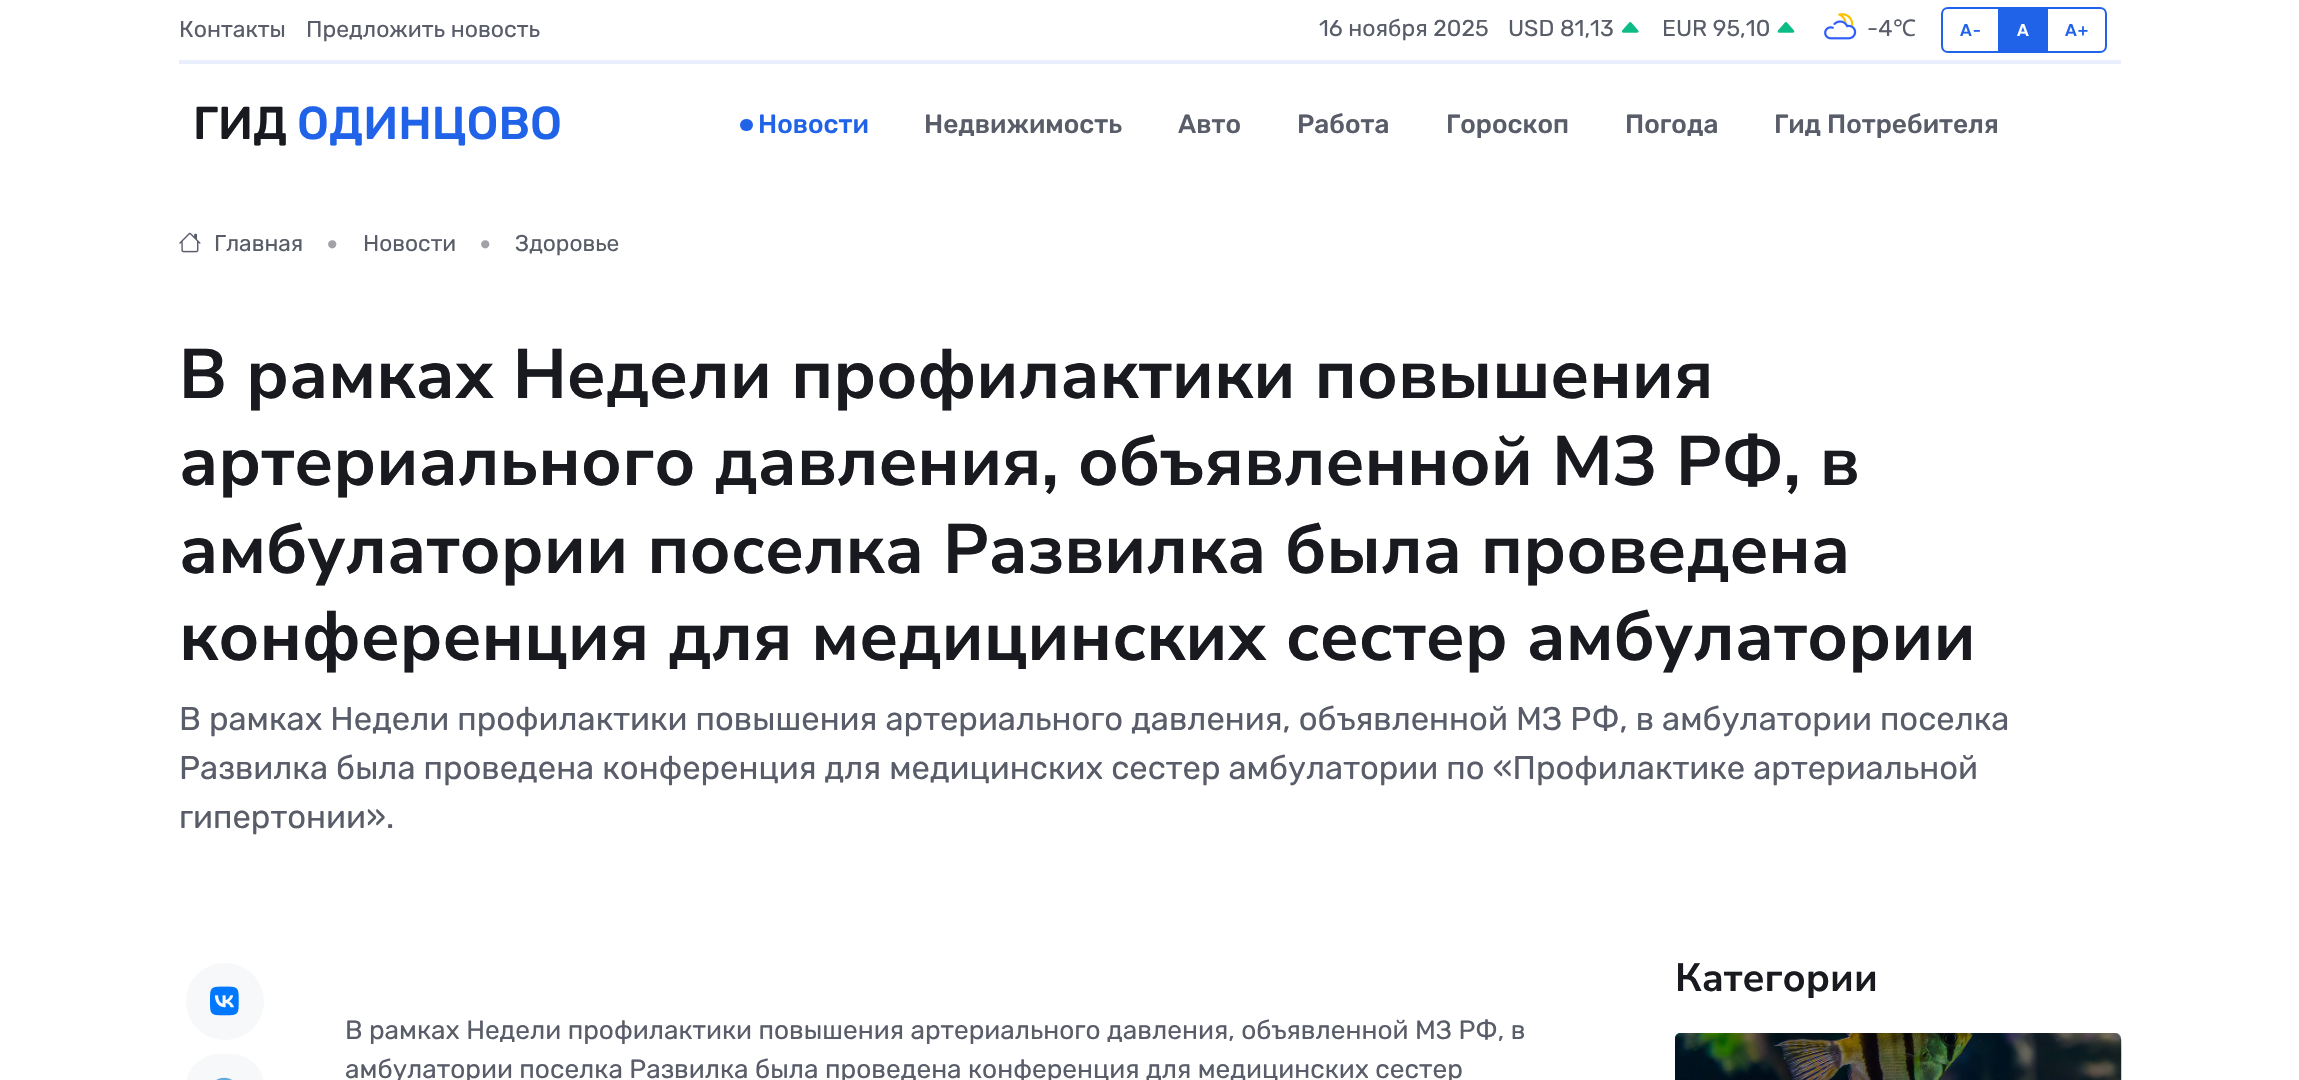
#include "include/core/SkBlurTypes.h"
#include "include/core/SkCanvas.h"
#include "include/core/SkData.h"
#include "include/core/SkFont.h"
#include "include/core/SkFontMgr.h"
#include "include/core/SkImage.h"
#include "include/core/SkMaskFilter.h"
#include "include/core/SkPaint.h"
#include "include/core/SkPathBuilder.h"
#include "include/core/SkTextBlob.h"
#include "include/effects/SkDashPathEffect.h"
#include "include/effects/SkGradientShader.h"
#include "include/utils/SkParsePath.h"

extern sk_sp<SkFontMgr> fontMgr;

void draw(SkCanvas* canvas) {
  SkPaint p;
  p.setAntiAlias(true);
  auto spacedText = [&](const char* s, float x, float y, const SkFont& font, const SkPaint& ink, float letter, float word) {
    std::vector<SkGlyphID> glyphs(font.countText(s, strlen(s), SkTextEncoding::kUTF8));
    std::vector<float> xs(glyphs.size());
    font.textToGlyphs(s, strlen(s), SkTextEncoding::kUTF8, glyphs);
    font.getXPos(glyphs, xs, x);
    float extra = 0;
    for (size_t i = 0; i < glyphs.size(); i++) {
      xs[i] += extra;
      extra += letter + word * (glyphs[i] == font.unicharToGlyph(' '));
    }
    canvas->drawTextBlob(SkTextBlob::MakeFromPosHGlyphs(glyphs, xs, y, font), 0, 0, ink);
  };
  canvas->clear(SK_ColorWHITE);
  canvas->drawImageRect(SkImages::DeferredFromEncodedData(SkData::MakeFromFileName("images/1.png")), SkRect::MakeLTRB(1621, 22, 1639, 33), SkSamplingOptions());
  canvas->drawImageRect(SkImages::DeferredFromEncodedData(SkData::MakeFromFileName("images/2.png")), SkRect::MakeLTRB(1777, 22, 1795, 33), SkSamplingOptions());
  canvas->drawImageRect(SkImages::DeferredFromEncodedData(SkData::MakeFromFileName("images/3.png")), SkRect::MakeLTRB(1824, 13, 1857, 40), SkSamplingOptions());
  p.setStyle(SkPaint::kStroke_Style);
  p.setStrokeWidth(2);
  p.setColor(SkColorSetRGB(33, 99, 232));
  canvas->drawPath(SkPathBuilder().moveTo(1948, 8).lineTo(1999, 8).lineTo(1999, 52).lineTo(1948, 52).cubicTo(1944.5f, 52, 1942, 49.5f, 1942, 46).lineTo(1942, 14).cubicTo(1942, 10.5f, 1944.5f, 8, 1948, 8).close().detach(), p);
  p.setStyle(SkPaint::kFill_Style);
  canvas->drawRect(SkRect::MakeLTRB(2000, 7, 2046, 53), p);
  p.setStyle(SkPaint::kStroke_Style);
  canvas->drawPath(SkPathBuilder().moveTo(2047, 8).lineTo(2100, 8).cubicTo(2103.5f, 8, 2106, 10.5f, 2106, 14).lineTo(2106, 46).cubicTo(2106, 49.5f, 2103.5f, 52, 2100, 52).lineTo(2047, 52).close().detach(), p);
  p.setStyle(SkPaint::kFill_Style);
  p.setColor(SkColorSetRGB(233, 239, 253));
  canvas->drawRect(SkRect::MakeLTRB(179, 60, 2121, 64), p);
  p.setColor(SkColorSetRGB(33, 99, 232));
  canvas->drawRoundRect(SkRect::MakeLTRB(740, 119, 753, 131), 6, 6, p);
  canvas->drawImageRect(SkImages::DeferredFromEncodedData(SkData::MakeFromFileName("images/4.png")), SkRect::MakeLTRB(179, 232, 201, 253), SkSamplingOptions());
  p.setColor(SkColorSetRGB(247, 248, 249));
  canvas->drawRoundRect(SkRect::MakeLTRB(186, 963, 264, 1040), 38.5f, 38.5f, p);
  canvas->drawImageRect(SkImages::DeferredFromEncodedData(SkData::MakeFromFileName("images/5.png")), SkRect::MakeLTRB(210, 986, 239, 1016), SkSamplingOptions());
  canvas->drawRoundRect(SkRect::MakeLTRB(186, 1054, 264, 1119), 39, 39, p);
  canvas->drawImageRect(SkImages::DeferredFromEncodedData(SkData::MakeFromFileName("images/6.png")), SkRect::MakeLTRB(216, 1077, 232, 1080), SkSamplingOptions());
  canvas->drawImageRect(SkImages::DeferredFromEncodedData(SkData::MakeFromFileName("images/7.png")), SkRect::MakeLTRB(1675, 1033, 2122, 1080), SkSamplingOptions());
  canvas->drawImageRect(SkImages::DeferredFromEncodedData(SkData::MakeFromFileName("images/8.png")), SkRect::MakeLTRB(1675, 1033, 2121, 1080), SkSamplingOptions());
  p.setColor(SkColorSetARGB(102, 0, 0, 0));
  canvas->drawRoundRect(SkRect::MakeLTRB(1675, 1033, 2121, 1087), 7, 7, p);
  SkFont font1(fontMgr->matchFamilyStyle("Rubik", SkFontStyle::Normal()), 23);
  font1.setSubpixel(true);
  p.setColor(SkColorSetRGB(89, 93, 105));
  canvas->drawString("Контакты", 179, 37, font1, p);
  canvas->drawString("Предложить новость", 306, 37, font1, p);
  canvas->drawString("16 ноября 2025", 1319, 36, font1, p);
  canvas->drawString("USD 81,13", 1508, 36, font1, p);
  canvas->drawString("EUR 95,10", 1662, 36, font1, p);
  canvas->drawString("-4", 1867, 36, font1, p);
  SkFont font2(fontMgr->matchFamilyStyle("Noto Sans", SkFontStyle::Normal()), 23);
  font2.setSubpixel(true);
  canvas->drawString("℃", 1893, 36, font2, p);
  SkFont font3(fontMgr->matchFamilyStyle("Rubik", SkFontStyle(500, SkFontStyle::kNormal_Width, SkFontStyle::kUpright_Slant)), 17);
  font3.setSubpixel(true);
  p.setColor(SkColorSetRGB(33, 99, 232));
  spacedText("A-", 1960, 36, font3, p, 1, 0);
  p.setColor(SK_ColorWHITE);
  spacedText("A", 2017, 36, font3, p, 1, 0);
  p.setColor(SkColorSetRGB(33, 99, 232));
  spacedText("A+", 2065, 36, font3, p, 1, 0);
  SkFont font4(fontMgr->matchFamilyStyle("Rubik", SkFontStyle(500, SkFontStyle::kNormal_Width, SkFontStyle::kUpright_Slant)), 46);
  font4.setSubpixel(true);
  p.setColor(SkColorSetRGB(25, 26, 31));
  canvas->drawString("ГИД", 193, 139, font4, p);
  p.setColor(SkColorSetRGB(33, 99, 232));
  canvas->drawString("ОДИНЦОВО", 297, 139, font4, p);
  SkFont font5(fontMgr->matchFamilyStyle("Rubik", SkFontStyle(500, SkFontStyle::kNormal_Width, SkFontStyle::kUpright_Slant)), 26.25f);
  font5.setSubpixel(true);
  canvas->drawString("Новости", 758, 133, font5, p);
  p.setColor(SkColorSetRGB(89, 93, 105));
  canvas->drawString("Недвижимость", 924, 133, font5, p);
  canvas->drawString("Авто", 1178, 133, font5, p);
  canvas->drawString("Работа", 1297, 133, font5, p);
  canvas->drawString("Гороскоп", 1446, 133, font5, p);
  canvas->drawString("Погода", 1625, 133, font5, p);
  canvas->drawString("Гид Потребителя", 1774, 133, font5, p);
  SkFont font6(fontMgr->matchFamilyStyle("Rubik", SkFontStyle::Normal()), 22.75f);
  font6.setSubpixel(true);
  canvas->drawString("Главная", 214, 251, font6, p);
  SkFont font7(fontMgr->matchFamilyStyle("Rubik", SkFontStyle::Normal()), 38);
  font7.setSubpixel(true);
  p.setColor(SkColorSetRGB(161, 161, 168));
  canvas->drawString("•", 325, 256, font7, p);
  p.setColor(SkColorSetRGB(89, 93, 105));
  canvas->drawString("Новости", 363, 251, font6, p);
  p.setColor(SkColorSetRGB(161, 161, 168));
  canvas->drawString("•", 478, 256, font7, p);
  p.setColor(SkColorSetRGB(89, 93, 105));
  canvas->drawString("Здоровье", 515, 251, font6, p);
  SkFont font8(fontMgr->matchFamilyStyle("Nunito Sans", SkFontStyle::Bold()), 70);
  font8.setSubpixel(true);
  p.setColor(SkColorSetRGB(25, 26, 31));
  canvas->drawString("В рамках Недели профилактики повышения", 179, 398, font8, p);
  canvas->drawString("артериального давления, объявленной МЗ РФ, в", 179, 485, font8, p);
  canvas->drawString("амбулатории поселка Развилка была проведена", 179, 573, font8, p);
  canvas->drawString("конференция для медицинских сестер амбулатории", 179, 660, font8, p);
  SkFont font9(fontMgr->matchFamilyStyle("Rubik", SkFontStyle::Normal()), 32.8f);
  font9.setSubpixel(true);
  p.setColor(SkColorSetRGB(89, 93, 105));
  canvas->drawString("В рамках Недели профилактики повышения артериального давления, объявленной МЗ РФ, в амбулатории поселка", 179, 730, font9, p);
  canvas->drawString("Развилка была проведена конференция для медицинских сестер амбулатории по «Профилактике артериальной", 179, 779, font9, p);
  canvas->drawString("гипертонии».", 179, 828, font9, p);
  SkFont font10(fontMgr->matchFamilyStyle("Nunito Sans", SkFontStyle::Bold()), 39.5f);
  font10.setSubpixel(true);
  p.setColor(SkColorSetRGB(25, 26, 31));
  canvas->drawString("Категории", 1675, 991, font10, p);
  SkFont font11(fontMgr->matchFamilyStyle("Rubik", SkFontStyle::Normal()), 26.25f);
  font11.setSubpixel(true);
  p.setColor(SkColorSetRGB(89, 93, 105));
  canvas->drawString("В рамках Недели профилактики повышения артериального давления, объявленной МЗ РФ, в", 345, 1039, font11, p);
  canvas->drawString("амбулатории поселка Развилка была проведена конференция для медицинских сестер", 345, 1078, font11, p);
}
